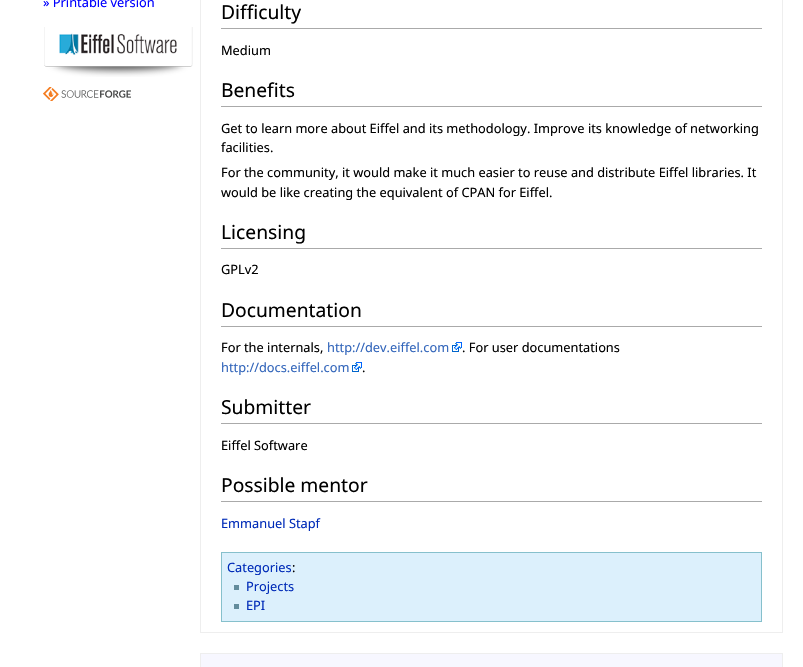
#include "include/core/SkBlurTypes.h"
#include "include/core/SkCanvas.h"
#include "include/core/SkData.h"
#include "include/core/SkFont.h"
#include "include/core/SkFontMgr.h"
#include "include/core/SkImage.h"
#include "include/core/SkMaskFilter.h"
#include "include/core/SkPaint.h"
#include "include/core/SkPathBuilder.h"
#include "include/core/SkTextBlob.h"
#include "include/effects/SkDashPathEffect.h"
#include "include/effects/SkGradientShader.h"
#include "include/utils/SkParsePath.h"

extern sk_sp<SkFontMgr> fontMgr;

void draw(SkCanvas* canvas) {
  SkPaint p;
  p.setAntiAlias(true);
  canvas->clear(SK_ColorWHITE);
  canvas->drawImageRect(SkImages::DeferredFromEncodedData(SkData::MakeFromFileName("images/1.png")), SkRect::MakeLTRB(44, 27, 193, 77), SkSamplingOptions());
  canvas->drawImageRect(SkImages::DeferredFromEncodedData(SkData::MakeFromFileName("images/2.png")), SkRect::MakeLTRB(43, 87, 131, 101), SkSamplingOptions());
  p.setStyle(SkPaint::kStroke_Style);
  p.setStrokeWidth(1);
  p.setColor(SkColorSetRGB(238, 238, 238));
  canvas->drawRect(SkRect::MakeLTRB(200.5f, -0.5f, 782.5f, 632.5f), p);
  p.setStyle(SkPaint::kFill_Style);
  p.setColor(SkColorSetRGB(170, 170, 170));
  canvas->drawRect(SkRect::MakeLTRB(221, 28, 762, 29), p);
  canvas->drawRect(SkRect::MakeLTRB(221, 106, 762, 107), p);
  canvas->drawRect(SkRect::MakeLTRB(221, 248, 762, 249), p);
  canvas->drawRect(SkRect::MakeLTRB(221, 326, 762, 327), p);
  canvas->drawImageRect(SkImages::DeferredFromEncodedData(SkData::MakeFromFileName("images/3.png")), SkRect::MakeLTRB(452, 342, 462, 352), SkSamplingOptions());
  canvas->drawImageRect(SkImages::DeferredFromEncodedData(SkData::MakeFromFileName("images/3.png")), SkRect::MakeLTRB(352, 362, 362, 372), SkSamplingOptions());
  canvas->drawRect(SkRect::MakeLTRB(221, 423, 762, 424), p);
  canvas->drawRect(SkRect::MakeLTRB(221, 501, 762, 502), p);
  p.setColor(SkColorSetRGB(220, 240, 252));
  canvas->drawRect(SkRect::MakeLTRB(221.5f, 552.5f, 761.5f, 621.5f), p);
  p.setStyle(SkPaint::kStroke_Style);
  p.setColor(SkColorSetRGB(134, 192, 204));
  canvas->drawRect(SkRect::MakeLTRB(221.5f, 552.5f, 761.5f, 621.5f), p);
  p.setStyle(SkPaint::kFill_Style);
  p.setColor(SkColorSetRGB(99, 140, 156));
  canvas->drawRect(SkRect::MakeLTRB(234, 585, 239, 590), p);
  canvas->drawRect(SkRect::MakeLTRB(234, 604, 239, 609), p);
  p.setColor(SkColorSetRGB(247, 247, 255));
  canvas->drawRect(SkRect::MakeLTRB(200.5f, 653.5f, 782.5f, 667.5f), p);
  p.setStyle(SkPaint::kStroke_Style);
  p.setColor(SkColorSetRGB(238, 238, 238));
  canvas->drawRect(SkRect::MakeLTRB(200.5f, 653.5f, 782.5f, 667.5f), p);
  SkFont font1(fontMgr->matchFamilyStyle("Noto Sans", SkFontStyle::Normal()), 12.8f);
  font1.setSubpixel(true);
  p.setStyle(SkPaint::kFill_Style);
  p.setColor(SkColorSetRGB(0, 0, 255));
  canvas->drawString("» Printable version", 43, 7, font1, p);
  SkFont font2(fontMgr->matchFamilyStyle("Noto Sans", SkFontStyle::Normal()), 19.25f);
  font2.setSubpixel(true);
  p.setColor(SK_ColorBLACK);
  canvas->drawString("Difficulty", 221, 19, font2, p);
  canvas->drawString("Medium", 221, 55, font1, p);
  canvas->drawString("Benefits", 221, 97, font2, p);
  canvas->drawString("Get to learn more about Eiffel and its methodology. Improve its knowledge of networking", 221, 133, font1, p);
  canvas->drawString("facilities.", 221, 152, font1, p);
  canvas->drawString("For the community, it would make it much easier to reuse and distribute Eiffel libraries. It", 221, 177, font1, p);
  canvas->drawString("would be like creating the equivalent of CPAN for Eiffel.", 221, 197, font1, p);
  canvas->drawString("Licensing", 221, 239, font2, p);
  canvas->drawString("GPLv2", 221, 274, font1, p);
  canvas->drawString("Documentation", 221, 317, font2, p);
  canvas->drawString("For the internals,", 221, 352, font1, p);
  p.setColor(SkColorSetRGB(51, 102, 187));
  canvas->drawString("http://dev.eiffel.com", 327, 352, font1, p);
  p.setColor(SK_ColorBLACK);
  canvas->drawString(". For user documentations", 462, 352, font1, p);
  p.setColor(SkColorSetRGB(51, 102, 187));
  canvas->drawString("http://docs.eiffel.com", 221, 372, font1, p);
  p.setColor(SK_ColorBLACK);
  canvas->drawString(".", 362, 372, font1, p);
  canvas->drawString("Submitter", 221, 414, font2, p);
  canvas->drawString("Eiffel Software", 221, 450, font1, p);
  canvas->drawString("Possible mentor", 221, 492, font2, p);
  p.setColor(SkColorSetRGB(0, 43, 184));
  canvas->drawString("Emmanuel Stapf", 221, 528, font1, p);
  canvas->drawString("Categories", 227, 572, font1, p);
  p.setColor(SK_ColorBLACK);
  canvas->drawString(":", 292, 572, font1, p);
  p.setColor(SkColorSetRGB(0, 43, 184));
  canvas->drawString("Projects", 246, 591, font1, p);
  canvas->drawString("EPI", 246, 610, font1, p);
}
